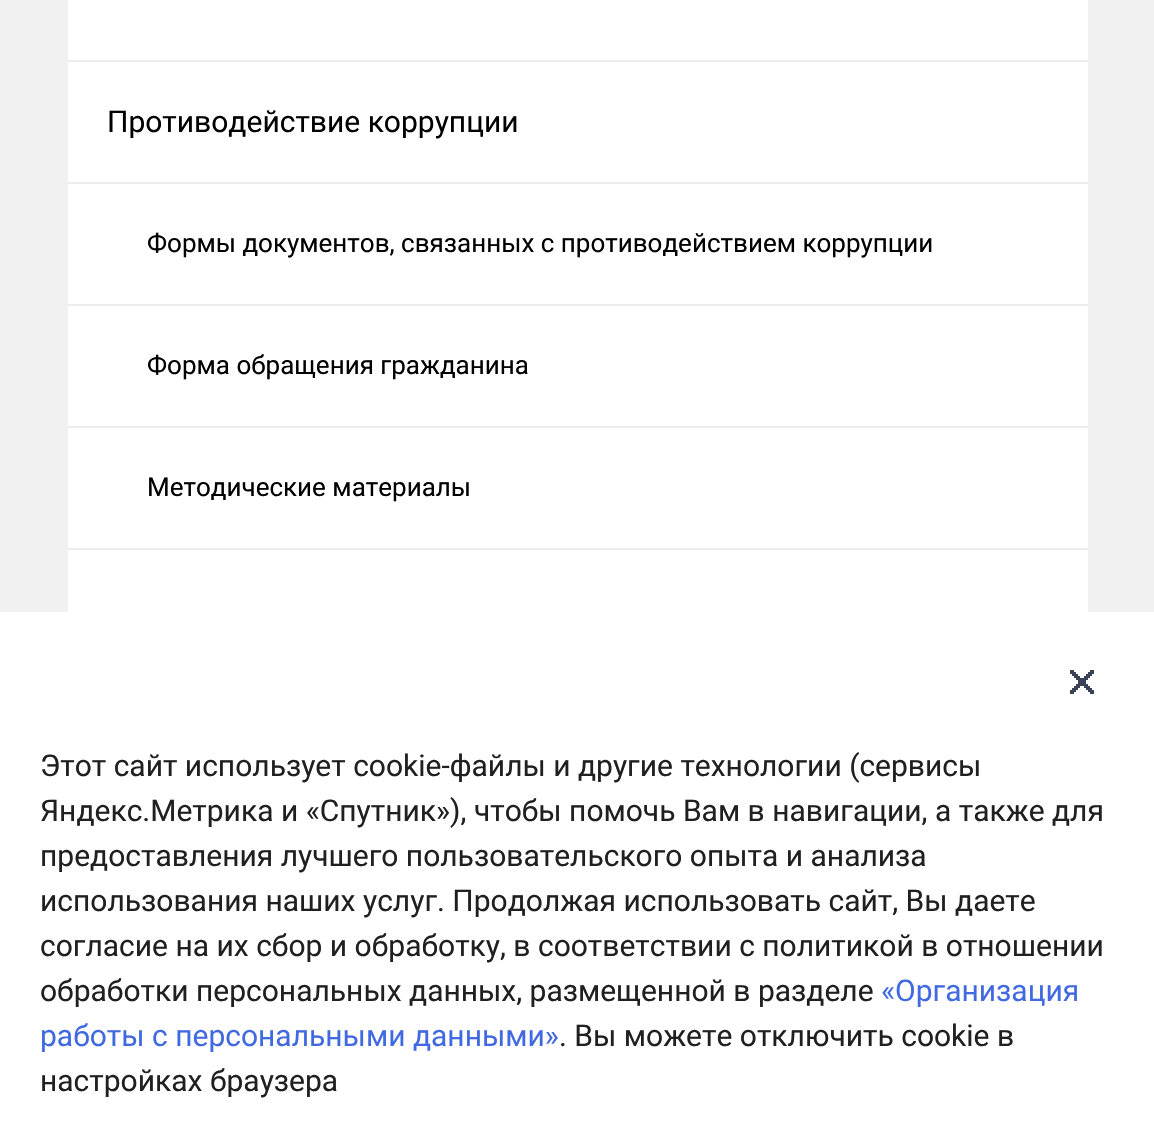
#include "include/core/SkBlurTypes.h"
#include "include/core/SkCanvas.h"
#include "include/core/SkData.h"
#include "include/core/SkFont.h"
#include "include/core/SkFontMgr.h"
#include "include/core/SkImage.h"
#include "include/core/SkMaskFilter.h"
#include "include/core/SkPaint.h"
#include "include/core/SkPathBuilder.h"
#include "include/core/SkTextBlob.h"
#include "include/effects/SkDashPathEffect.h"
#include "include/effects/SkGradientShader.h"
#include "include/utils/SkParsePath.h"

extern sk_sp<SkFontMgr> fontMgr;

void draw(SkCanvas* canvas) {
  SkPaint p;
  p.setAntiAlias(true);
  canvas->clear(SkColorSetRGB(241, 241, 241));
  p.setColor(SK_ColorWHITE);
  canvas->drawRect(SkRect::MakeLTRB(68, 0, 1088, 612), p);
  p.setColor(SkColorSetRGB(237, 237, 237));
  canvas->drawRect(SkRect::MakeLTRB(68, 60, 1088, 62), p);
  canvas->drawRect(SkRect::MakeLTRB(68, 182, 1088, 184), p);
  canvas->drawRect(SkRect::MakeLTRB(68, 304, 1088, 306), p);
  canvas->drawRect(SkRect::MakeLTRB(68, 426, 1088, 428), p);
  canvas->drawRect(SkRect::MakeLTRB(68, 548, 1088, 550), p);
  p.setColor(SK_ColorWHITE);
  canvas->drawRect(SkRect::MakeLTRB(0, 612, 1154, 1143), p);
  canvas->drawImageRect(SkImages::DeferredFromEncodedData(SkData::MakeFromFileName("images/1.png")), SkRect::MakeLTRB(1070, 670, 1094, 694), SkSamplingOptions());
  SkFont font1(fontMgr->matchFamilyStyle("Roboto", SkFontStyle::Normal()), 30);
  font1.setSubpixel(true);
  p.setColor(SK_ColorBLACK);
  canvas->drawString("Противодействие коррупции", 107, 132, font1, p);
  SkFont font2(fontMgr->matchFamilyStyle("Roboto", SkFontStyle::Normal()), 26);
  font2.setSubpixel(true);
  canvas->drawString("Формы документов, связанных с противодействием коррупции", 147, 252, font2, p);
  canvas->drawString("Форма обращения гражданина", 147, 374, font2, p);
  canvas->drawString("Методические материалы", 147, 496, font2, p);
  p.setColor(SkColorSetRGB(32, 32, 32));
  canvas->drawString("Этот сайт использует cookie-файлы и другие технологии (сервисы", 40, 776, font1, p);
  canvas->drawString("Яндекс.Метрика и «Спутник»), чтобы помочь Вам в навигации, а также для", 40, 821, font1, p);
  canvas->drawString("предоставления лучшего пользовательского опыта и анализа", 40, 866, font1, p);
  canvas->drawString("использования наших услуг. Продолжая использовать сайт, Вы даете", 40, 911, font1, p);
  canvas->drawString("согласие на их сбор и обработку, в соответствии с политикой в отношении", 40, 956, font1, p);
  canvas->drawString("обработки персональных данных, размещенной в разделе", 40, 1001, font1, p);
  p.setColor(SkColorSetRGB(65, 105, 225));
  canvas->drawString("«Организация", 881, 1001, font1, p);
  canvas->drawString("работы с персональными данными»", 40, 1046, font1, p);
  p.setColor(SkColorSetRGB(32, 32, 32));
  canvas->drawString(". Вы можете отключить cookie в", 559, 1046, font1, p);
  canvas->drawString("настройках браузера", 40, 1091, font1, p);
}
